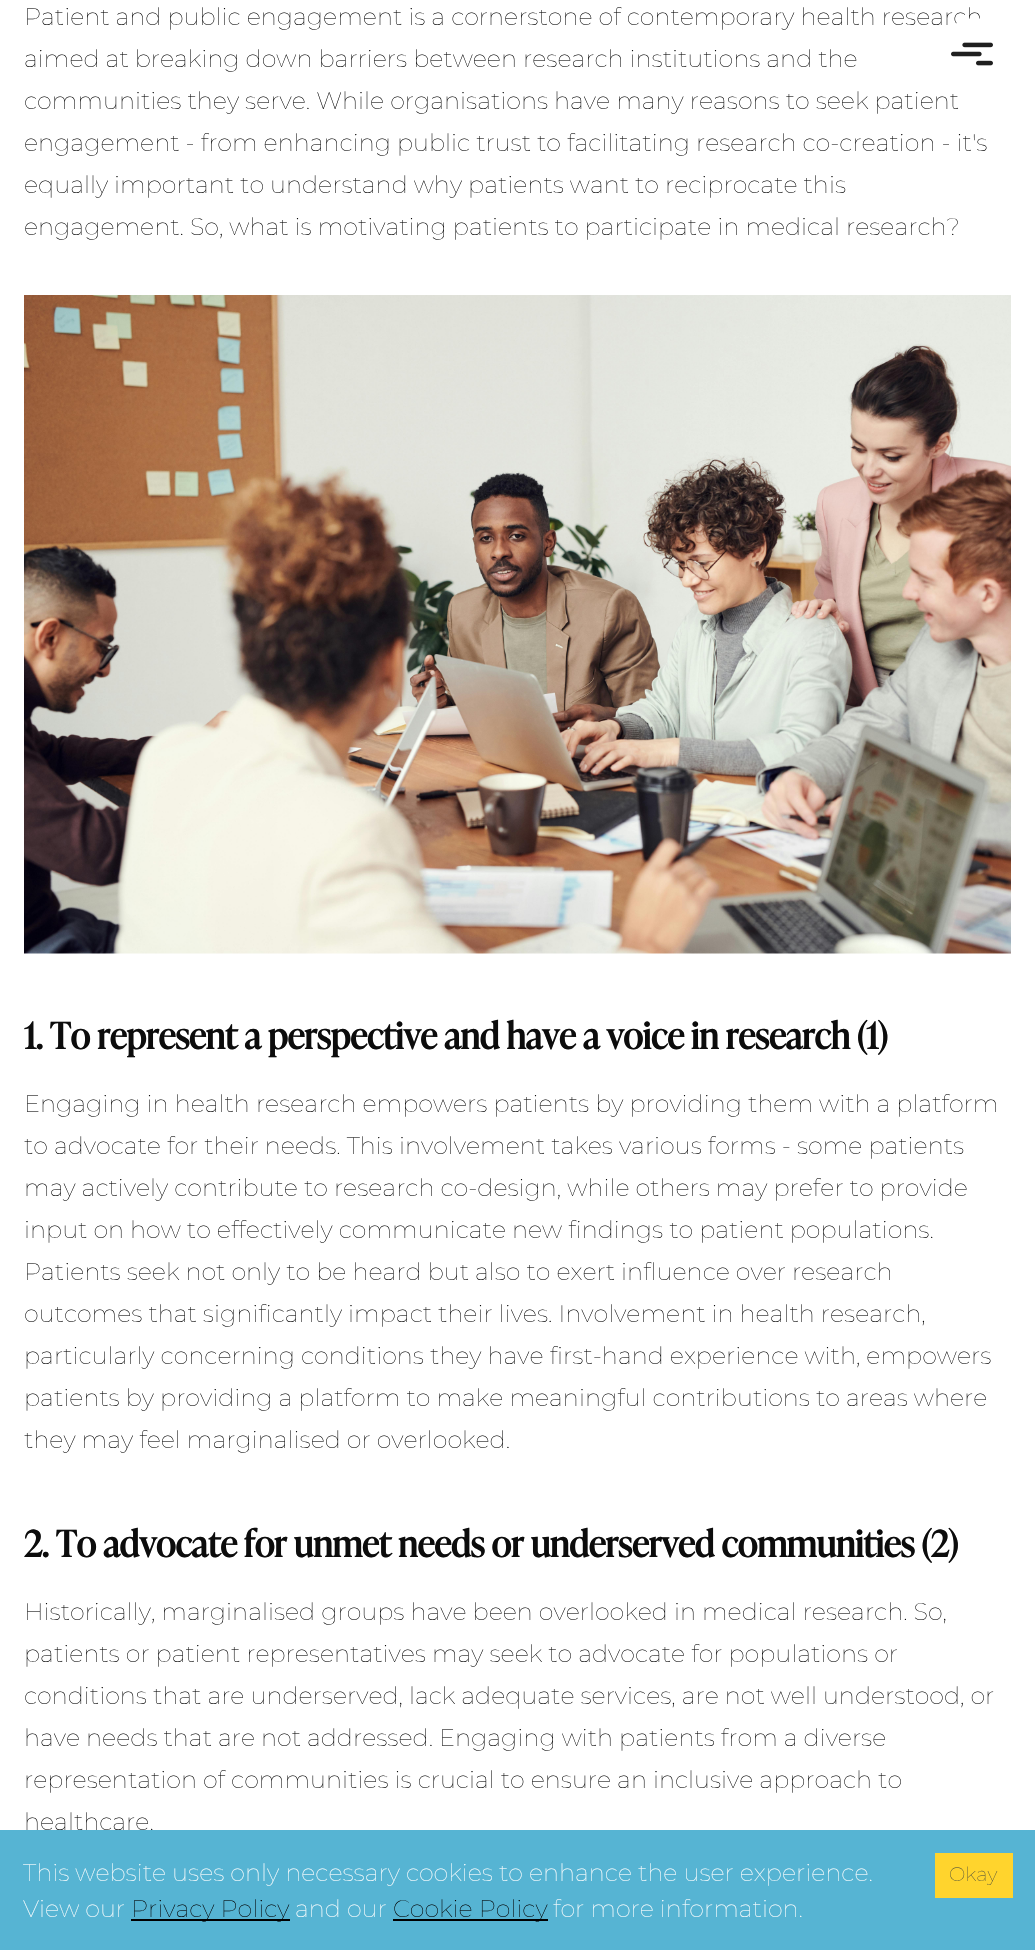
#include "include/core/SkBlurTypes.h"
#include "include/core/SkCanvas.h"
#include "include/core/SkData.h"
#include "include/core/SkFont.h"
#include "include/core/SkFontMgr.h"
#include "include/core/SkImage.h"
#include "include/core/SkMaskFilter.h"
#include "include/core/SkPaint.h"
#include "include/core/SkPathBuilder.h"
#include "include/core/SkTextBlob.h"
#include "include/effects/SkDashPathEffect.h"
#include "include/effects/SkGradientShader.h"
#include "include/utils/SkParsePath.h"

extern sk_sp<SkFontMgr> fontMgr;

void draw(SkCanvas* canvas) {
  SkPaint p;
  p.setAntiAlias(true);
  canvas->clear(SK_ColorWHITE);
  canvas->drawImageRect(SkImages::DeferredFromEncodedData(SkData::MakeFromFileName("images/1.png")), SkRect::MakeLTRB(24, 295, 1011, 954), SkSamplingOptions());
  SkFont font1(fontMgr->matchFamilyStyle("Montserrat", SkFontStyle(100, SkFontStyle::kNormal_Width, SkFontStyle::kUpright_Slant)), 24);
  font1.setSubpixel(true);
  p.setColor(SkColorSetRGB(12, 12, 12));
  canvas->drawString("Patient and public engagement is a cornerstone of contemporary health research", 24, 25, font1, p);
  canvas->drawString("aimed at breaking down barriers between research institutions and the", 24, 67, font1, p);
  canvas->drawString("communities they serve. While organisations have many reasons to seek patient", 24, 109, font1, p);
  canvas->drawString("engagement - from enhancing public trust to facilitating research co-creation - it's", 24, 151, font1, p);
  canvas->drawString("equally important to understand why patients want to reciprocate this", 24, 193, font1, p);
  canvas->drawString("engagement. So, what is motivating patients to participate in medical research?", 24, 235, font1, p);
  SkFont font2(fontMgr->matchFamilyStyle("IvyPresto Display", SkFontStyle::Bold()), 36);
  font2.setSubpixel(true);
  canvas->drawString("1. To represent a perspective and have a voice in research (1)", 24, 1049, font2, p);
  canvas->drawString("Engaging in health research empowers patients by providing them with a platform", 24, 1112, font1, p);
  canvas->drawString("to advocate for their needs. This involvement takes various forms - some patients", 24, 1154, font1, p);
  canvas->drawString("may actively contribute to research co-design, while others may prefer to provide", 24, 1196, font1, p);
  canvas->drawString("input on how to effectively communicate new findings to patient populations.", 24, 1238, font1, p);
  canvas->drawString("Patients seek not only to be heard but also to exert influence over research", 24, 1280, font1, p);
  canvas->drawString("outcomes that significantly impact their lives. Involvement in health research,", 24, 1322, font1, p);
  canvas->drawString("particularly concerning conditions they have first-hand experience with, empowers", 24, 1364, font1, p);
  canvas->drawString("patients by providing a platform to make meaningful contributions to areas where", 24, 1406, font1, p);
  canvas->drawString("they may feel marginalised or overlooked.", 24, 1448, font1, p);
  canvas->drawString("2. To advocate for unmet needs or underserved communities (2)", 24, 1557, font2, p);
  canvas->drawString("Historically, marginalised groups have been overlooked in medical research. So,", 24, 1620, font1, p);
  canvas->drawString("patients or patient representatives may seek to advocate for populations or", 24, 1662, font1, p);
  canvas->drawString("conditions that are underserved, lack adequate services, are not well understood, or", 24, 1704, font1, p);
  canvas->drawString("have needs that are not addressed. Engaging with patients from a diverse", 24, 1746, font1, p);
  canvas->drawString("representation of communities is crucial to ensure an inclusive approach to", 24, 1788, font1, p);
  canvas->drawString("healthcare.", 24, 1830, font1, p);
  p.setColor(SK_ColorWHITE);
  canvas->drawCircle(975, 54, 36, p);
  canvas->drawImageRect(SkImages::DeferredFromEncodedData(SkData::MakeFromFileName("images/2.png")), SkRect::MakeLTRB(951, 42, 993, 66), SkSamplingOptions());
  p.setColor(SkColorSetRGB(86, 180, 211));
  canvas->drawRect(SkRect::MakeLTRB(0, 1830, 1035, 1950), p);
  p.setColor(SK_ColorWHITE);
  canvas->drawString("This website uses only necessary cookies to enhance the user experience.", 23, 1881, font1, p);
  canvas->drawString("View our", 23, 1917, font1, p);
  p.setColor(SK_ColorBLACK);
  canvas->drawRect(SkRect::MakeLTRB(131, 1919, 290, 1921), p);
  canvas->drawString("Privacy Policy", 131, 1917, font1, p);
  p.setColor(SK_ColorWHITE);
  canvas->drawString("and our", 295, 1917, font1, p);
  p.setColor(SK_ColorBLACK);
  canvas->drawRect(SkRect::MakeLTRB(393, 1919, 548, 1921), p);
  canvas->drawString("Cookie Policy", 393, 1917, font1, p);
  p.setColor(SK_ColorWHITE);
  canvas->drawString("for more information.", 553, 1917, font1, p);
  p.setColor(SkColorSetRGB(255, 212, 45));
  canvas->drawRect(SkRect::MakeLTRB(935, 1853, 1013, 1898), p);
  SkFont font3(fontMgr->matchFamilyStyle("Montserrat", SkFontStyle(100, SkFontStyle::kNormal_Width, SkFontStyle::kUpright_Slant)), 19.5f);
  font3.setSubpixel(true);
  p.setColor(SkColorSetRGB(78, 80, 59));
  canvas->drawString("Okay", 949, 1881, font3, p);
}
